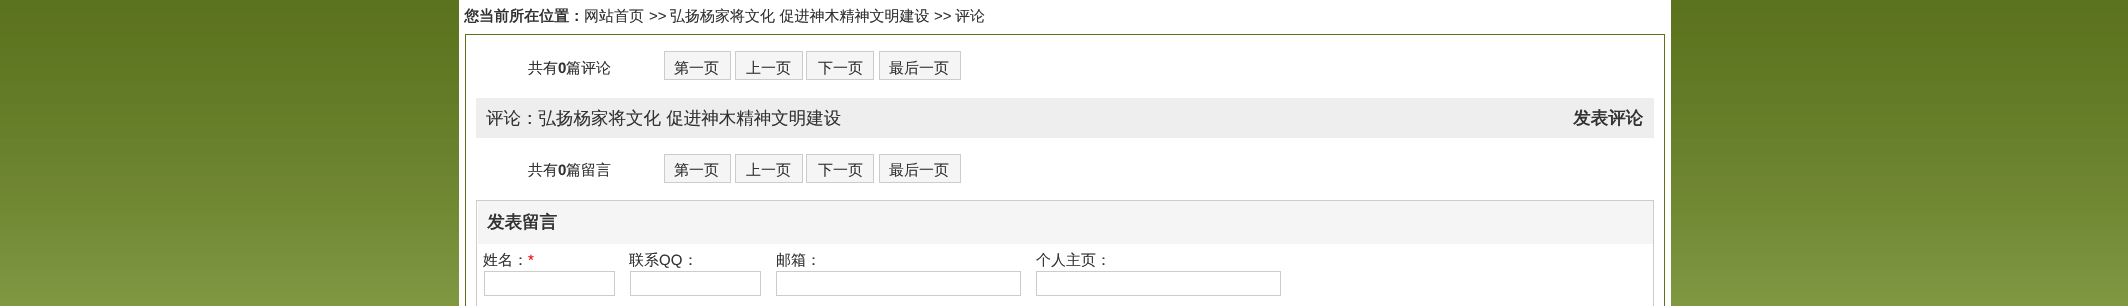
#include "include/core/SkBlurTypes.h"
#include "include/core/SkCanvas.h"
#include "include/core/SkData.h"
#include "include/core/SkFont.h"
#include "include/core/SkFontMgr.h"
#include "include/core/SkImage.h"
#include "include/core/SkMaskFilter.h"
#include "include/core/SkPaint.h"
#include "include/core/SkPathBuilder.h"
#include "include/core/SkTextBlob.h"
#include "include/effects/SkDashPathEffect.h"
#include "include/effects/SkGradientShader.h"
#include "include/utils/SkParsePath.h"

extern sk_sp<SkFontMgr> fontMgr;

void draw(SkCanvas* canvas) {
  SkPaint p;
  p.setAntiAlias(true);
  canvas->clear(SK_ColorWHITE);
  canvas->drawImageRect(SkImages::DeferredFromEncodedData(SkData::MakeFromFileName("images/1.png")), SkRect::MakeLTRB(0, 0, 2128, 306), SkSamplingOptions());
  p.setColor(SK_ColorWHITE);
  canvas->drawRect(SkRect::MakeLTRB(459, 0, 1671, 306), p);
  p.setStyle(SkPaint::kStroke_Style);
  p.setStrokeWidth(1);
  p.setColor(SkColorSetRGB(92, 115, 30));
  canvas->drawRect(SkRect::MakeLTRB(465.5f, 34.5f, 1664.5f, 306.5f), p);
  p.setStyle(SkPaint::kFill_Style);
  p.setColor(SkColorSetRGB(245, 245, 245));
  canvas->drawRect(SkRect::MakeLTRB(664.5f, 51.5f, 730.5f, 79.5f), p);
  p.setStyle(SkPaint::kStroke_Style);
  p.setColor(SkColorSetRGB(204, 204, 204));
  canvas->drawRect(SkRect::MakeLTRB(664.5f, 51.5f, 730.5f, 79.5f), p);
  p.setStyle(SkPaint::kFill_Style);
  p.setColor(SkColorSetRGB(245, 245, 245));
  canvas->drawRect(SkRect::MakeLTRB(735.5f, 51.5f, 802.5f, 79.5f), p);
  p.setStyle(SkPaint::kStroke_Style);
  p.setColor(SkColorSetRGB(204, 204, 204));
  canvas->drawRect(SkRect::MakeLTRB(735.5f, 51.5f, 802.5f, 79.5f), p);
  p.setStyle(SkPaint::kFill_Style);
  p.setColor(SkColorSetRGB(245, 245, 245));
  canvas->drawRect(SkRect::MakeLTRB(806.5f, 51.5f, 873.5f, 79.5f), p);
  p.setStyle(SkPaint::kStroke_Style);
  p.setColor(SkColorSetRGB(204, 204, 204));
  canvas->drawRect(SkRect::MakeLTRB(806.5f, 51.5f, 873.5f, 79.5f), p);
  p.setStyle(SkPaint::kFill_Style);
  p.setColor(SkColorSetRGB(245, 245, 245));
  canvas->drawRect(SkRect::MakeLTRB(879.5f, 51.5f, 960.5f, 79.5f), p);
  p.setStyle(SkPaint::kStroke_Style);
  p.setColor(SkColorSetRGB(204, 204, 204));
  canvas->drawRect(SkRect::MakeLTRB(879.5f, 51.5f, 960.5f, 79.5f), p);
  p.setStyle(SkPaint::kFill_Style);
  p.setColor(SkColorSetRGB(238, 238, 238));
  canvas->drawRect(SkRect::MakeLTRB(476, 98, 1654, 138), p);
  p.setColor(SkColorSetRGB(245, 245, 245));
  canvas->drawRect(SkRect::MakeLTRB(664.5f, 154.5f, 730.5f, 182.5f), p);
  p.setStyle(SkPaint::kStroke_Style);
  p.setColor(SkColorSetRGB(204, 204, 204));
  canvas->drawRect(SkRect::MakeLTRB(664.5f, 154.5f, 730.5f, 182.5f), p);
  p.setStyle(SkPaint::kFill_Style);
  p.setColor(SkColorSetRGB(245, 245, 245));
  canvas->drawRect(SkRect::MakeLTRB(735.5f, 154.5f, 802.5f, 182.5f), p);
  p.setStyle(SkPaint::kStroke_Style);
  p.setColor(SkColorSetRGB(204, 204, 204));
  canvas->drawRect(SkRect::MakeLTRB(735.5f, 154.5f, 802.5f, 182.5f), p);
  p.setStyle(SkPaint::kFill_Style);
  p.setColor(SkColorSetRGB(245, 245, 245));
  canvas->drawRect(SkRect::MakeLTRB(806.5f, 154.5f, 873.5f, 182.5f), p);
  p.setStyle(SkPaint::kStroke_Style);
  p.setColor(SkColorSetRGB(204, 204, 204));
  canvas->drawRect(SkRect::MakeLTRB(806.5f, 154.5f, 873.5f, 182.5f), p);
  p.setStyle(SkPaint::kFill_Style);
  p.setColor(SkColorSetRGB(245, 245, 245));
  canvas->drawRect(SkRect::MakeLTRB(879.5f, 154.5f, 960.5f, 182.5f), p);
  p.setStyle(SkPaint::kStroke_Style);
  p.setColor(SkColorSetRGB(204, 204, 204));
  canvas->drawRect(SkRect::MakeLTRB(879.5f, 154.5f, 960.5f, 182.5f), p);
  canvas->drawRect(SkRect::MakeLTRB(476.5f, 200.5f, 1653.5f, 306.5f), p);
  p.setStyle(SkPaint::kFill_Style);
  p.setColor(SkColorSetRGB(245, 245, 245));
  canvas->drawRect(SkRect::MakeLTRB(478, 201, 1653, 244), p);
  p.setStyle(SkPaint::kStroke_Style);
  p.setColor(SkColorSetRGB(204, 204, 204));
  canvas->drawRect(SkRect::MakeLTRB(484.5f, 271.5f, 614.5f, 295.5f), p);
  canvas->drawRect(SkRect::MakeLTRB(630.5f, 271.5f, 760.5f, 295.5f), p);
  canvas->drawRect(SkRect::MakeLTRB(776.5f, 271.5f, 1020.5f, 295.5f), p);
  canvas->drawRect(SkRect::MakeLTRB(1036.5f, 271.5f, 1280.5f, 295.5f), p);
  SkFont font1(fontMgr->matchFamilyStyle("WenQuanYi Zen Hei", SkFontStyle::Bold()), 15);
  font1.setSubpixel(true);
  p.setStyle(SkPaint::kFill_Style);
  p.setColor(SkColorSetRGB(51, 51, 51));
  canvas->drawString("您当前所在位置：", 464, 21, font1, p);
  SkFont font2(fontMgr->matchFamilyStyle("WenQuanYi Zen Hei", SkFontStyle(500, SkFontStyle::kNormal_Width, SkFontStyle::kUpright_Slant)), 15);
  font2.setSubpixel(true);
  canvas->drawString("网站首页", 584, 21, font2, p);
  SkFont font3(fontMgr->matchFamilyStyle("Liberation Sans", SkFontStyle::Normal()), 15);
  font3.setSubpixel(true);
  canvas->drawString(">>", 649, 21, font3, p);
  canvas->drawString("弘扬杨家将文化 促进神木精神文明建设", 670, 21, font2, p);
  canvas->drawString(">>", 934, 21, font3, p);
  canvas->drawString("评论", 955, 21, font2, p);
  canvas->drawString("共有", 528, 73, font2, p);
  SkFont font4(fontMgr->matchFamilyStyle("Liberation Sans", SkFontStyle::Bold()), 15);
  font4.setSubpixel(true);
  canvas->drawString("0", 558, 73, font4, p);
  canvas->drawString("篇评论", 566, 73, font2, p);
  canvas->drawString("第一页", 674, 73, font2, p);
  canvas->drawString("上一页", 746, 73, font2, p);
  canvas->drawString("下一页", 818, 73, font2, p);
  canvas->drawString("最后一页", 889, 73, font2, p);
  SkFont font5(fontMgr->matchFamilyStyle("WenQuanYi Zen Hei", SkFontStyle(500, SkFontStyle::kNormal_Width, SkFontStyle::kUpright_Slant)), 17.5f);
  font5.setSubpixel(true);
  canvas->drawString("评论：弘扬杨家将文化 促进神木精神文明建设", 486, 124, font5, p);
  SkFont font6(fontMgr->matchFamilyStyle("WenQuanYi Zen Hei", SkFontStyle::Bold()), 17.5f);
  font6.setSubpixel(true);
  canvas->drawString("发表评论", 1573, 124, font6, p);
  canvas->drawString("共有", 528, 175, font2, p);
  canvas->drawString("0", 558, 175, font4, p);
  canvas->drawString("篇留言", 566, 175, font2, p);
  canvas->drawString("第一页", 674, 175, font2, p);
  canvas->drawString("上一页", 746, 175, font2, p);
  canvas->drawString("下一页", 818, 175, font2, p);
  canvas->drawString("最后一页", 889, 175, font2, p);
  canvas->drawString("发表留言", 487, 228, font6, p);
  canvas->drawString("姓名：", 483, 265, font2, p);
  p.setColor(SkColorSetRGB(255, 0, 0));
  canvas->drawString("*", 528, 265, font3, p);
  p.setColor(SkColorSetRGB(51, 51, 51));
  canvas->drawString("联系", 629, 265, font2, p);
  canvas->drawString("QQ", 659, 265, font3, p);
  canvas->drawString("：", 683, 265, font2, p);
  canvas->drawString("邮箱：", 776, 265, font2, p);
  canvas->drawString("个人主页：", 1036, 265, font2, p);
}
